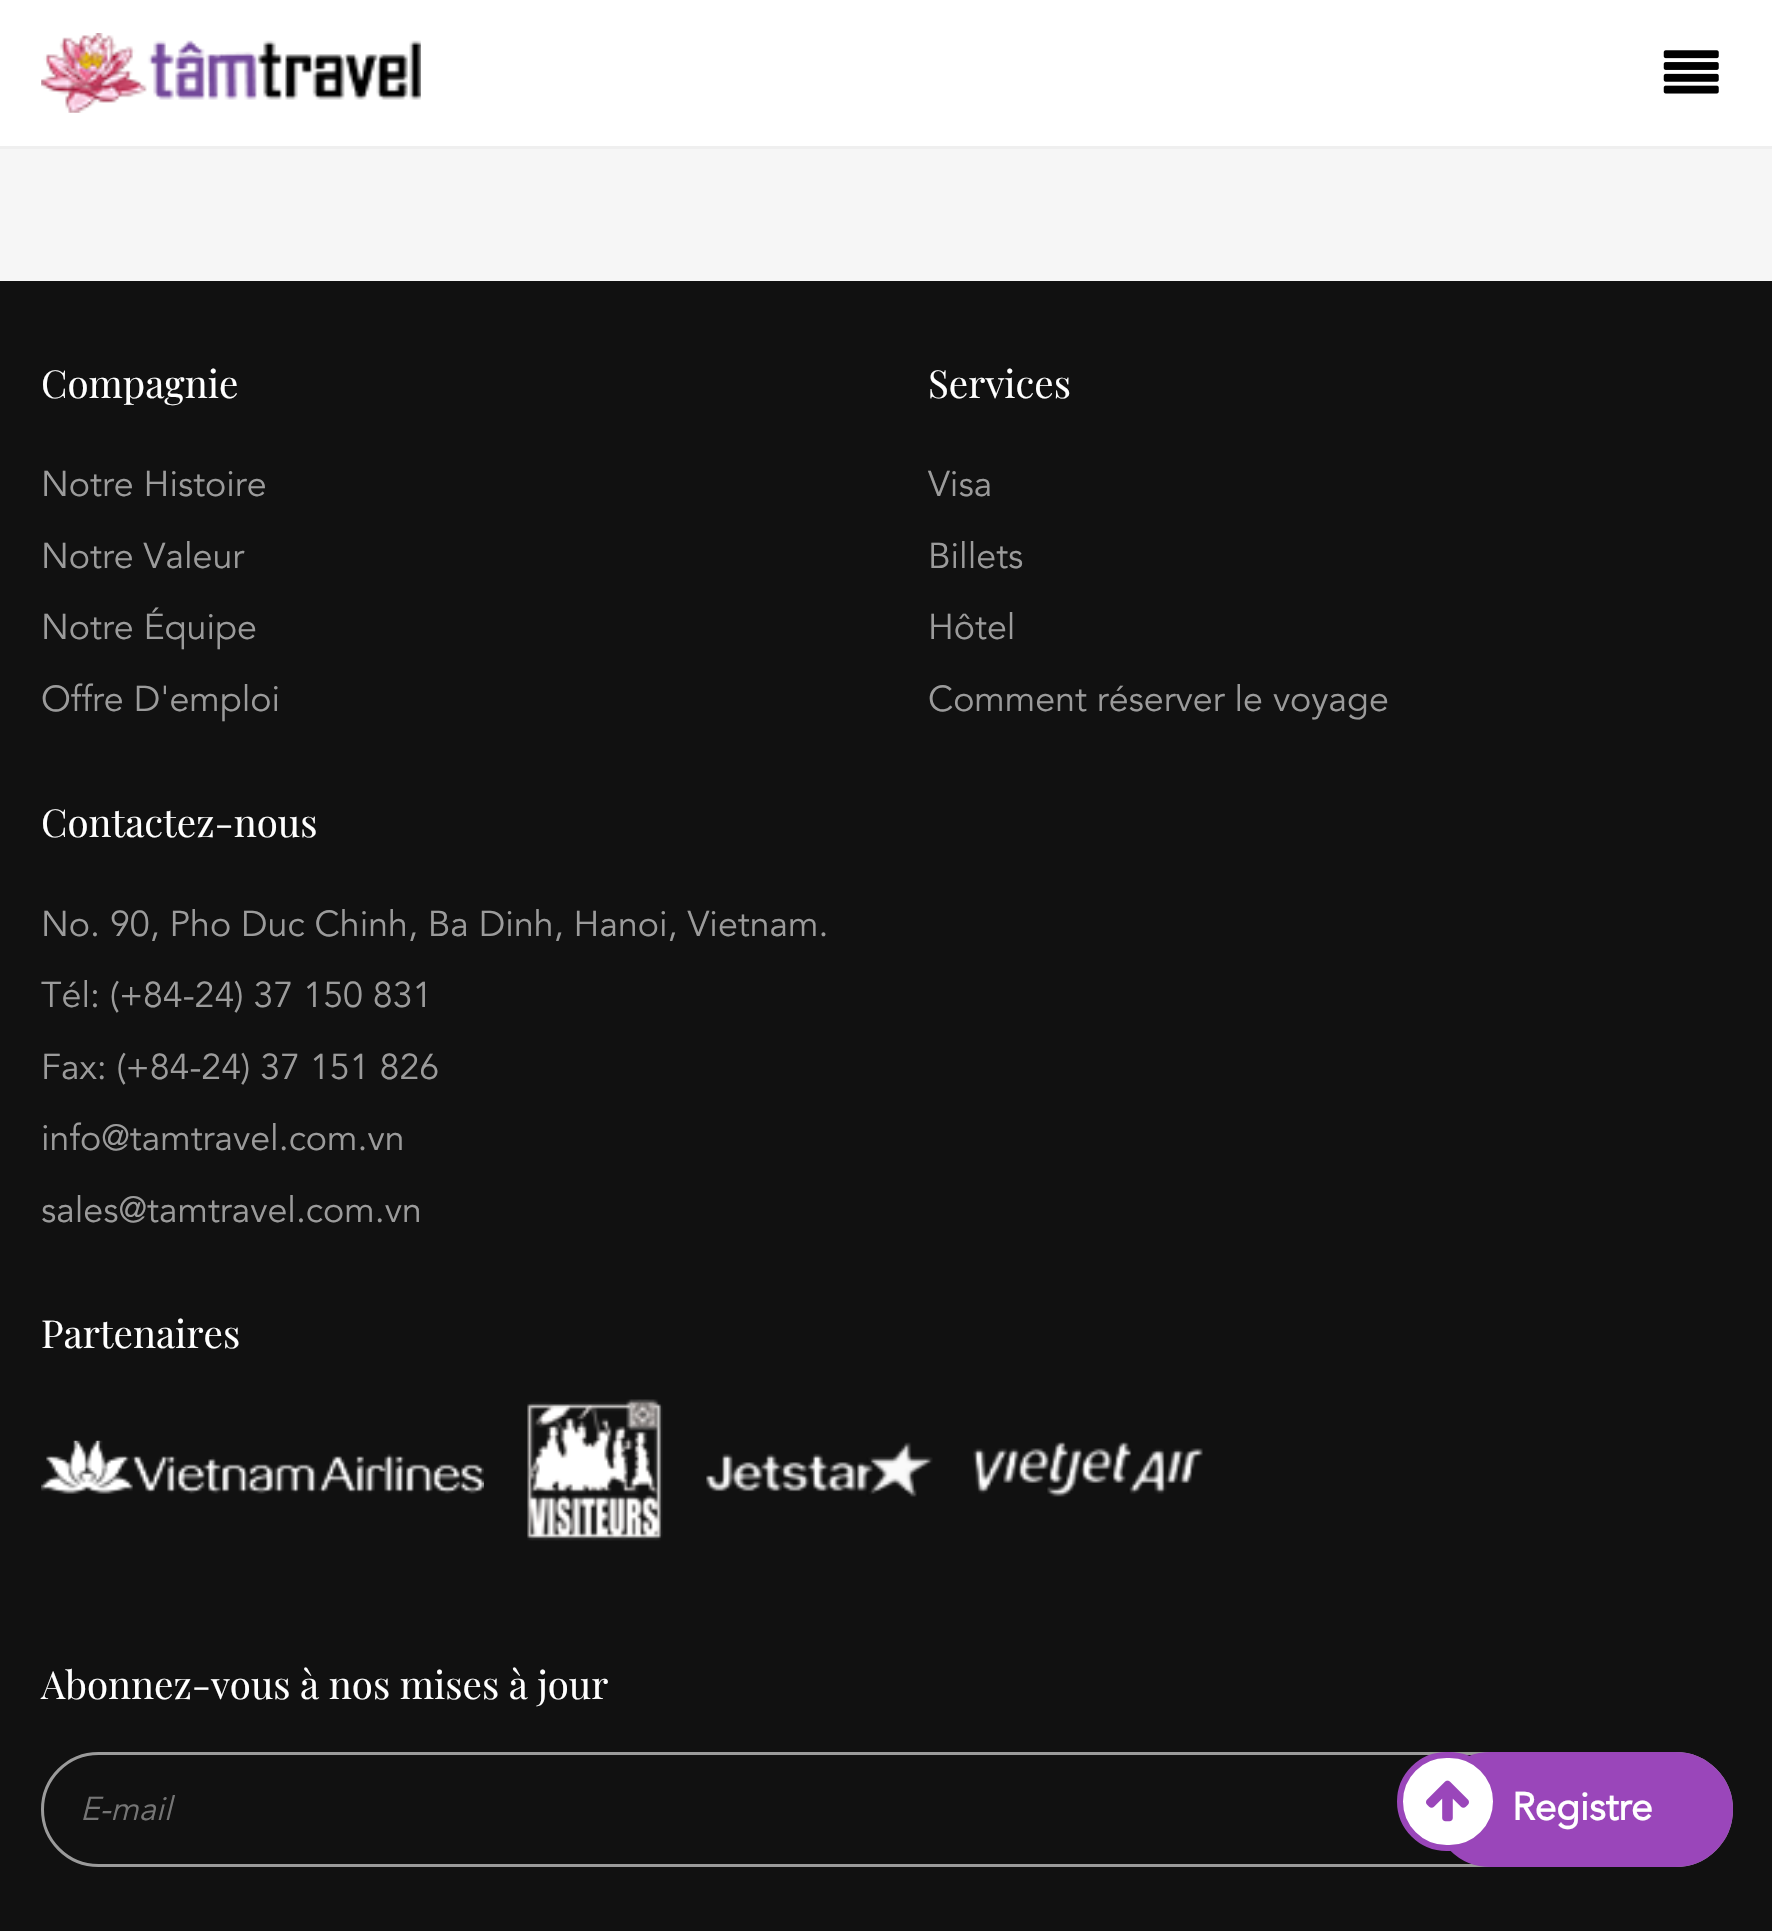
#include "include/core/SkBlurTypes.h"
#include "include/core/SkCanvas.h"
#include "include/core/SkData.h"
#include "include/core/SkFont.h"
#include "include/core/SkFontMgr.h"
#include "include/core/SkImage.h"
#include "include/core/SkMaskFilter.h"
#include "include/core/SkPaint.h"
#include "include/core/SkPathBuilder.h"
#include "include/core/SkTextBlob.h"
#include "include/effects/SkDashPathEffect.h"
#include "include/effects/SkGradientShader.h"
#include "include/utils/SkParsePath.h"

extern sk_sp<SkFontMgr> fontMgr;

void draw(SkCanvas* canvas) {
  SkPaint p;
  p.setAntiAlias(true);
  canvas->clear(SkColorSetRGB(246, 246, 246));
  p.setColor(SK_ColorWHITE);
  canvas->drawRect(SkRect::MakeLTRB(0, 0, 1772, 146), p);
  p.setColor(SkColorSetRGB(239, 239, 239));
  canvas->drawRect(SkRect::MakeLTRB(0, 146, 1772, 149), p);
  canvas->drawImageRect(SkImages::DeferredFromEncodedData(SkData::MakeFromFileName("images/1.png")), SkRect::MakeLTRB(41, 33, 421, 113), SkSamplingOptions());
  canvas->drawImageRect(SkImages::DeferredFromEncodedData(SkData::MakeFromFileName("images/2.png")), SkRect::MakeLTRB(1663, 50, 1719, 94), SkSamplingOptions());
  p.setColor(SkColorSetRGB(17, 17, 17));
  canvas->drawRect(SkRect::MakeLTRB(0, 281, 1772, 1931), p);
  canvas->drawImageRect(SkImages::DeferredFromEncodedData(SkData::MakeFromFileName("images/3.png")), SkRect::MakeLTRB(41, 1440, 484, 1494), SkSamplingOptions());
  canvas->drawImageRect(SkImages::DeferredFromEncodedData(SkData::MakeFromFileName("images/4.png")), SkRect::MakeLTRB(527, 1399, 663, 1541), SkSamplingOptions());
  canvas->drawImageRect(SkImages::DeferredFromEncodedData(SkData::MakeFromFileName("images/5.png")), SkRect::MakeLTRB(706, 1442, 933, 1497), SkSamplingOptions());
  canvas->drawImageRect(SkImages::DeferredFromEncodedData(SkData::MakeFromFileName("images/6.png")), SkRect::MakeLTRB(973, 1441, 1203, 1497), SkSamplingOptions());
  p.setStyle(SkPaint::kStroke_Style);
  p.setStrokeWidth(3);
  p.setColor(SkColorSetRGB(155, 155, 155));
  canvas->drawRoundRect(SkRect::MakeLTRB(42.5f, 1753.5f, 1731.5f, 1865.5f), 56, 56, p);
  p.setStyle(SkPaint::kFill_Style);
  p.setColor(SkColorSetRGB(154, 70, 186));
  canvas->drawRoundRect(SkRect::MakeLTRB(1434.5f, 1753.5f, 1731.5f, 1865.5f), 56, 56, p);
  p.setStyle(SkPaint::kStroke_Style);
  canvas->drawRoundRect(SkRect::MakeLTRB(1434.5f, 1753.5f, 1731.5f, 1865.5f), 56, 56, p);
  p.setStyle(SkPaint::kFill_Style);
  p.setColor(SK_ColorWHITE);
  canvas->drawRoundRect(SkRect::MakeLTRB(1400, 1755, 1496, 1848), 46.5f, 46.5f, p);
  p.setStyle(SkPaint::kStroke_Style);
  p.setStrokeWidth(6);
  p.setColor(SkColorSetRGB(154, 70, 186));
  canvas->drawRoundRect(SkRect::MakeLTRB(1400, 1755, 1496, 1848), 46.5f, 46.5f, p);
  canvas->drawImageRect(SkImages::DeferredFromEncodedData(SkData::MakeFromFileName("images/7.png")), SkRect::MakeLTRB(1426, 1780, 1469, 1822), SkSamplingOptions());
  SkFont font1(fontMgr->matchFamilyStyle("Playfair Display", SkFontStyle::Normal()), 38.5f);
  font1.setSubpixel(true);
  p.setStyle(SkPaint::kFill_Style);
  p.setColor(SK_ColorWHITE);
  canvas->drawString("Compagnie", 41, 398, font1, p);
  SkFont font2(fontMgr->matchFamilyStyle("Avenir", SkFontStyle::Normal()), 35.75f);
  font2.setSubpixel(true);
  p.setColor(SkColorSetRGB(155, 155, 155));
  canvas->drawString("Notre Histoire", 41, 496, font2, p);
  canvas->drawString("Notre Valeur", 41, 568, font2, p);
  canvas->drawString("Notre Équipe", 41, 639, font2, p);
  canvas->drawString("Offre D'emploi", 41, 711, font2, p);
  p.setColor(SK_ColorWHITE);
  canvas->drawString("Services", 928, 398, font1, p);
  p.setColor(SkColorSetRGB(155, 155, 155));
  canvas->drawString("Visa", 928, 496, font2, p);
  canvas->drawString("Billets", 928, 568, font2, p);
  canvas->drawString("Hôtel", 928, 639, font2, p);
  canvas->drawString("Comment réserver le voyage", 928, 711, font2, p);
  p.setColor(SK_ColorWHITE);
  canvas->drawString("Contactez-nous", 41, 837, font1, p);
  p.setColor(SkColorSetRGB(155, 155, 155));
  canvas->drawString("No. 90, Pho Duc Chinh, Ba Dinh, Hanoi, Vietnam.", 41, 936, font2, p);
  canvas->drawString("Tél: (+84-24) 37 150 831", 41, 1007, font2, p);
  canvas->drawString("Fax: (+84-24) 37 151 826", 41, 1079, font2, p);
  canvas->drawString("info@tamtravel.com.vn", 41, 1150, font2, p);
  canvas->drawString("sales@tamtravel.com.vn", 41, 1222, font2, p);
  p.setColor(SK_ColorWHITE);
  canvas->drawString("Partenaires", 41, 1348, font1, p);
  canvas->drawString("Abonnez-vous à nos mises à jour", 41, 1699, font1, p);
  SkFont font3(fontMgr->matchFamilyStyle("Avenir", SkFontStyle::Italic()), 33);
  font3.setSubpixel(true);
  p.setColor(SkColorSetRGB(117, 117, 117));
  canvas->drawString("E-mail", 80, 1820, font3, p);
  SkFont font4(fontMgr->matchFamilyStyle("Avenir", SkFontStyle::Bold()), 38.5f);
  font4.setSubpixel(true);
  p.setColor(SK_ColorWHITE);
  canvas->drawString("Registre", 1512, 1820, font4, p);
}
